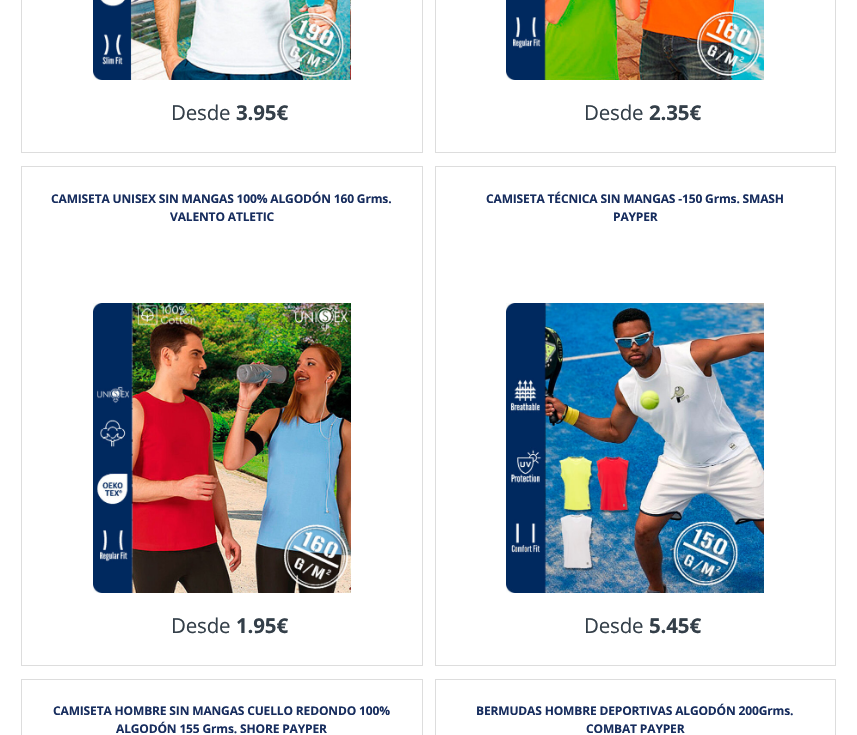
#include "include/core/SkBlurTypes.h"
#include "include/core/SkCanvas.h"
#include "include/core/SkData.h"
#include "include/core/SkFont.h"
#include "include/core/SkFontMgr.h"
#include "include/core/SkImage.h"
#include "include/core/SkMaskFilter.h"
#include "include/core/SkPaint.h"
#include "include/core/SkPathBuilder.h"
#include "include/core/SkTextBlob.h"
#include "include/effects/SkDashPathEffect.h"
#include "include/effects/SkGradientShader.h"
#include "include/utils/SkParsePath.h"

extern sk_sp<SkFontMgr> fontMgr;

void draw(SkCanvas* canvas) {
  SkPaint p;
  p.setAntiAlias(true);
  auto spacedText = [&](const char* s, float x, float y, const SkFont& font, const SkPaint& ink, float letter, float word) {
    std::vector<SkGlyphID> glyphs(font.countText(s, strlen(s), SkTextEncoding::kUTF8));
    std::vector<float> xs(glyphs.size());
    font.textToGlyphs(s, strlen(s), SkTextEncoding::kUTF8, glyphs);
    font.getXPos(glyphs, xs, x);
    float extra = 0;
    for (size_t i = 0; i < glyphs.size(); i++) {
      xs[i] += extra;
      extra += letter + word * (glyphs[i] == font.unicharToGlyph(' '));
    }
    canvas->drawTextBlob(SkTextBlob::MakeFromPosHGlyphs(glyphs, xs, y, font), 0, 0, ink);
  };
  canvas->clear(SK_ColorWHITE);
  p.setStyle(SkPaint::kStroke_Style);
  p.setStrokeWidth(1);
  p.setColor(SkColorSetRGB(221, 221, 221));
  canvas->drawRect(SkRect::MakeLTRB(21.5f, -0.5f, 422.5f, 152.5f), p);
  canvas->drawImageRect(SkImages::DeferredFromEncodedData(SkData::MakeFromFileName("images/1.png")), SkRect::MakeLTRB(93, 0, 351, 80), SkSamplingOptions());
  canvas->drawRect(SkRect::MakeLTRB(435.5f, -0.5f, 835.5f, 152.5f), p);
  canvas->drawImageRect(SkImages::DeferredFromEncodedData(SkData::MakeFromFileName("images/2.png")), SkRect::MakeLTRB(506, 0, 764, 80), SkSamplingOptions());
  canvas->drawRect(SkRect::MakeLTRB(21.5f, 166.5f, 422.5f, 665.5f), p);
  canvas->drawImageRect(SkImages::DeferredFromEncodedData(SkData::MakeFromFileName("images/3.png")), SkRect::MakeLTRB(93, 303, 351, 593), SkSamplingOptions());
  canvas->drawRect(SkRect::MakeLTRB(435.5f, 166.5f, 835.5f, 665.5f), p);
  canvas->drawImageRect(SkImages::DeferredFromEncodedData(SkData::MakeFromFileName("images/4.png")), SkRect::MakeLTRB(506, 303, 764, 593), SkSamplingOptions());
  canvas->drawRect(SkRect::MakeLTRB(21.5f, 679.5f, 422.5f, 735.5f), p);
  canvas->drawRect(SkRect::MakeLTRB(435.5f, 679.5f, 835.5f, 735.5f), p);
  SkFont font1(fontMgr->matchFamilyStyle("Open Sans", SkFontStyle::Normal()), 20.5f);
  font1.setSubpixel(true);
  p.setStyle(SkPaint::kFill_Style);
  p.setColor(SkColorSetRGB(52, 63, 73));
  spacedText("Desde", 171, 120, font1, p, -0.15f, 0);
  SkFont font2(fontMgr->matchFamilyStyle("Open Sans", SkFontStyle::Bold()), 20.5f);
  font2.setSubpixel(true);
  spacedText("3.95€", 236, 120, font2, p, -0.15f, 0);
  spacedText("Desde", 584, 120, font1, p, -0.15f, 0);
  spacedText("2.35€", 649, 120, font2, p, -0.15f, 0);
  SkFont font3(fontMgr->matchFamilyStyle("Open Sans", SkFontStyle::Bold()), 12);
  font3.setSubpixel(true);
  p.setColor(SkColorSetRGB(23, 45, 94));
  spacedText("CAMISETA UNISEX SIN MANGAS 100% ALGODÓN 160 Grms.", 51, 203, font3, p, -0.15f, 0);
  spacedText("VALENTO ATLETIC", 170, 221, font3, p, -0.15f, 0);
  p.setColor(SkColorSetRGB(52, 63, 73));
  spacedText("Desde", 171, 633, font1, p, -0.15f, 0);
  spacedText("1.95€", 236, 633, font2, p, -0.15f, 0);
  p.setColor(SkColorSetRGB(23, 45, 94));
  spacedText("CAMISETA TÉCNICA SIN MANGAS -150 Grms. SMASH", 486, 203, font3, p, -0.15f, 0);
  spacedText("PAYPER", 613, 221, font3, p, -0.15f, 0);
  p.setColor(SkColorSetRGB(52, 63, 73));
  spacedText("Desde", 584, 633, font1, p, -0.15f, 0);
  spacedText("5.45€", 649, 633, font2, p, -0.15f, 0);
  p.setColor(SkColorSetRGB(23, 45, 94));
  spacedText("CAMISETA HOMBRE SIN MANGAS CUELLO REDONDO 100%", 53, 715, font3, p, -0.15f, 0);
  spacedText("ALGODÓN 155 Grms. SHORE PAYPER", 116, 733, font3, p, -0.15f, 0);
  spacedText("BERMUDAS HOMBRE DEPORTIVAS ALGODÓN 200Grms.", 476, 715, font3, p, -0.15f, 0);
  spacedText("COMBAT PAYPER", 586, 733, font3, p, -0.15f, 0);
}
